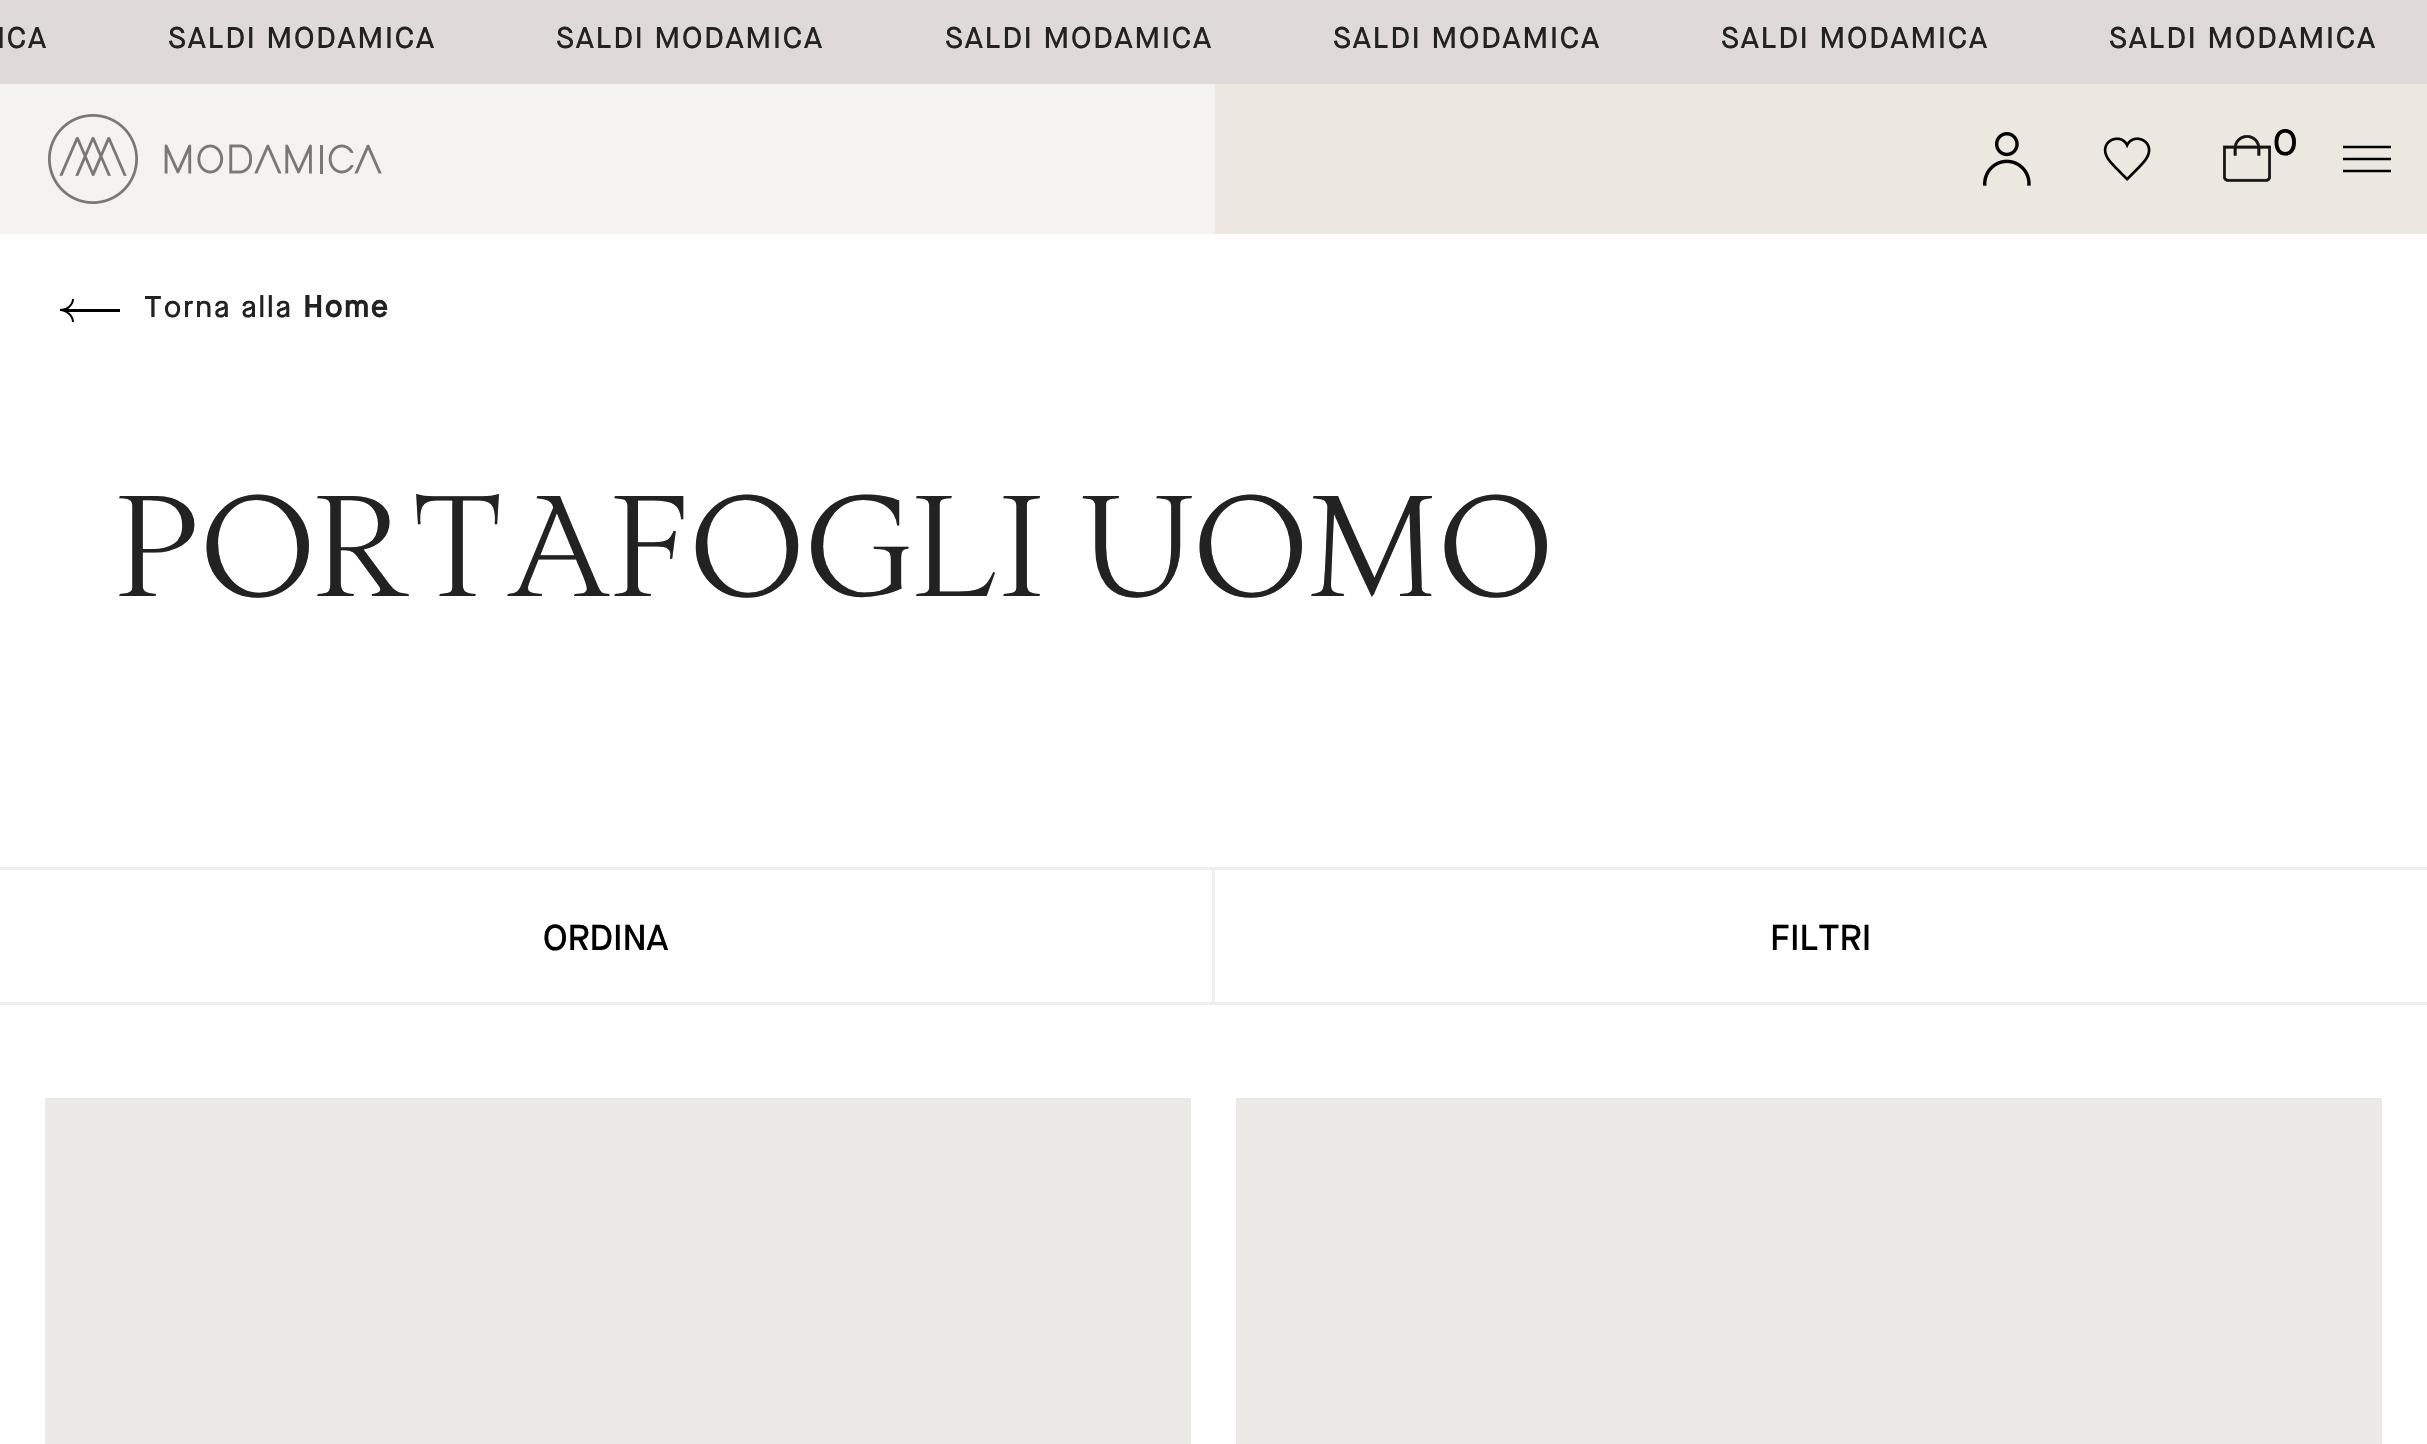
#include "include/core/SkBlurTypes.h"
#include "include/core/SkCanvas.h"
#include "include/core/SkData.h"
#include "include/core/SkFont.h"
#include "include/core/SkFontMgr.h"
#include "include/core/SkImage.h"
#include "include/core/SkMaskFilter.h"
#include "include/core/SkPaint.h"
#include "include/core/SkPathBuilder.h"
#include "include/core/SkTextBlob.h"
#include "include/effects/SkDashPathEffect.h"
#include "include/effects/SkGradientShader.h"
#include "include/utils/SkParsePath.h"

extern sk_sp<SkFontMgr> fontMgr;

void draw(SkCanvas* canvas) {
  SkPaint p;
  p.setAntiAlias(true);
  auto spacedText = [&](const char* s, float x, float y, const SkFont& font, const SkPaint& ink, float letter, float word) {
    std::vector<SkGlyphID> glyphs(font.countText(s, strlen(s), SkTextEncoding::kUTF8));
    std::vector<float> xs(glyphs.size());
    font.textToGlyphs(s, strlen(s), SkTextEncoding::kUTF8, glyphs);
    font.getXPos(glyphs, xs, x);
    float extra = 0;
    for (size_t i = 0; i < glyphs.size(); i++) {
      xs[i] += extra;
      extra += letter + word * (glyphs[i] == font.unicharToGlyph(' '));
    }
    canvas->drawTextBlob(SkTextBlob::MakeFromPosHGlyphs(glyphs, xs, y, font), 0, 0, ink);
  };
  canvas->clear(SK_ColorWHITE);
  p.setColor(SkColorSetRGB(223, 218, 216));
  canvas->drawRect(SkRect::MakeLTRB(0, 0, 2427, 84), p);
  p.setColor(SkColorSetRGB(244, 243, 241));
  canvas->drawRect(SkRect::MakeLTRB(0, 84, 1215, 234), p);
  canvas->drawImageRect(SkImages::DeferredFromEncodedData(SkData::MakeFromFileName("images/1.png")), SkRect::MakeLTRB(48, 114, 382, 204), SkSamplingOptions());
  p.setColor(SkColorSetRGB(237, 232, 223));
  canvas->drawRect(SkRect::MakeLTRB(1215, 84, 2427, 234), p);
  canvas->drawImageRect(SkImages::DeferredFromEncodedData(SkData::MakeFromFileName("images/2.png")), SkRect::MakeLTRB(1983, 132, 2031, 186), SkSamplingOptions());
  canvas->drawImageRect(SkImages::DeferredFromEncodedData(SkData::MakeFromFileName("images/3.png")), SkRect::MakeLTRB(2103, 137, 2151, 181), SkSamplingOptions());
  canvas->drawImageRect(SkImages::DeferredFromEncodedData(SkData::MakeFromFileName("images/4.png")), SkRect::MakeLTRB(2223, 135, 2271, 182), SkSamplingOptions());
  p.setStyle(SkPaint::kStroke_Style);
  p.setStrokeWidth(2.7f);
  p.setColor(SK_ColorBLACK);
  canvas->drawPath(SkPathBuilder().moveTo(2343, 147).lineTo(2391, 147).moveTo(2343, 159).lineTo(2391, 159).moveTo(2343, 171).lineTo(2391, 171).detach(), p);
  p.setStyle(SkPaint::kFill_Style);
  canvas->drawPath(SkPathBuilder().moveTo(74, 299).cubicTo(74, 303, 71, 307, 68, 309).lineTo(120, 309).lineTo(120, 312).lineTo(68, 312).cubicTo(71, 313, 74, 318, 74, 322).lineTo(72, 322).cubicTo(72, 316, 66, 311, 60, 311).lineTo(60, 309).cubicTo(66, 309, 72, 305, 72, 299).detach(), p);
  p.setColor(SkColorSetRGB(238, 238, 238));
  canvas->drawRect(SkRect::MakeLTRB(0, 867, 2427, 1005), p);
  p.setColor(SK_ColorWHITE);
  canvas->drawRect(SkRect::MakeLTRB(0, 870, 1212, 1002), p);
  canvas->drawRect(SkRect::MakeLTRB(1215, 870, 2427, 1002), p);
  p.setColor(SkColorSetRGB(234, 233, 229));
  canvas->drawRect(SkRect::MakeLTRB(45, 1098, 1191, 1444), p);
  canvas->drawRect(SkRect::MakeLTRB(1236, 1098, 2382, 1444), p);
  SkFont font1(fontMgr->matchFamilyStyle("Maison Neue", SkFontStyle(500, SkFontStyle::kNormal_Width, SkFontStyle::kUpright_Slant)), 30);
  font1.setSubpixel(true);
  p.setColor(SkColorSetRGB(34, 34, 34));
  spacedText("ICA", -3, 48, font1, p, 1.9f, 0);
  spacedText("SALDI MODAMICA", 168, 48, font1, p, 1.9f, 0);
  spacedText("SALDI MODAMICA", 556, 48, font1, p, 1.9f, 0);
  spacedText("SALDI MODAMICA", 945, 48, font1, p, 1.9f, 0);
  spacedText("SALDI MODAMICA", 1333, 48, font1, p, 1.9f, 0);
  spacedText("SALDI MODAMICA", 1721, 48, font1, p, 1.9f, 0);
  spacedText("SALDI MODAMICA", 2109, 48, font1, p, 1.9f, 0);
  SkFont font2(fontMgr->matchFamilyStyle("Maison Neue", SkFontStyle(500, SkFontStyle::kNormal_Width, SkFontStyle::kUpright_Slant)), 38);
  font2.setSubpixel(true);
  p.setColor(SK_ColorBLACK);
  canvas->drawString("0", 2273, 155, font2, p);
  p.setColor(SkColorSetRGB(34, 34, 34));
  spacedText("Torna alla", 144, 317, font1, p, 1.9f, 0);
  SkFont font3(fontMgr->matchFamilyStyle("Maison Neue", SkFontStyle::Bold()), 30);
  font3.setSubpixel(true);
  spacedText("Home", 303, 317, font3, p, 1.9f, 0);
  SkFont font4(fontMgr->matchFamilyStyle("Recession", SkFontStyle::Normal()), 150);
  font4.setSubpixel(true);
  spacedText("PORTAFOGLI UOMO", 120, 596, font4, p, 1.9f, 0);
  SkFont font5(fontMgr->matchFamilyStyle("Maison Neue", SkFontStyle(500, SkFontStyle::kNormal_Width, SkFontStyle::kUpright_Slant)), 36);
  font5.setSubpixel(true);
  p.setColor(SK_ColorBLACK);
  canvas->drawString("ORDINA", 543, 950, font5, p);
  canvas->drawString("FILTRI", 1770, 950, font5, p);
}
